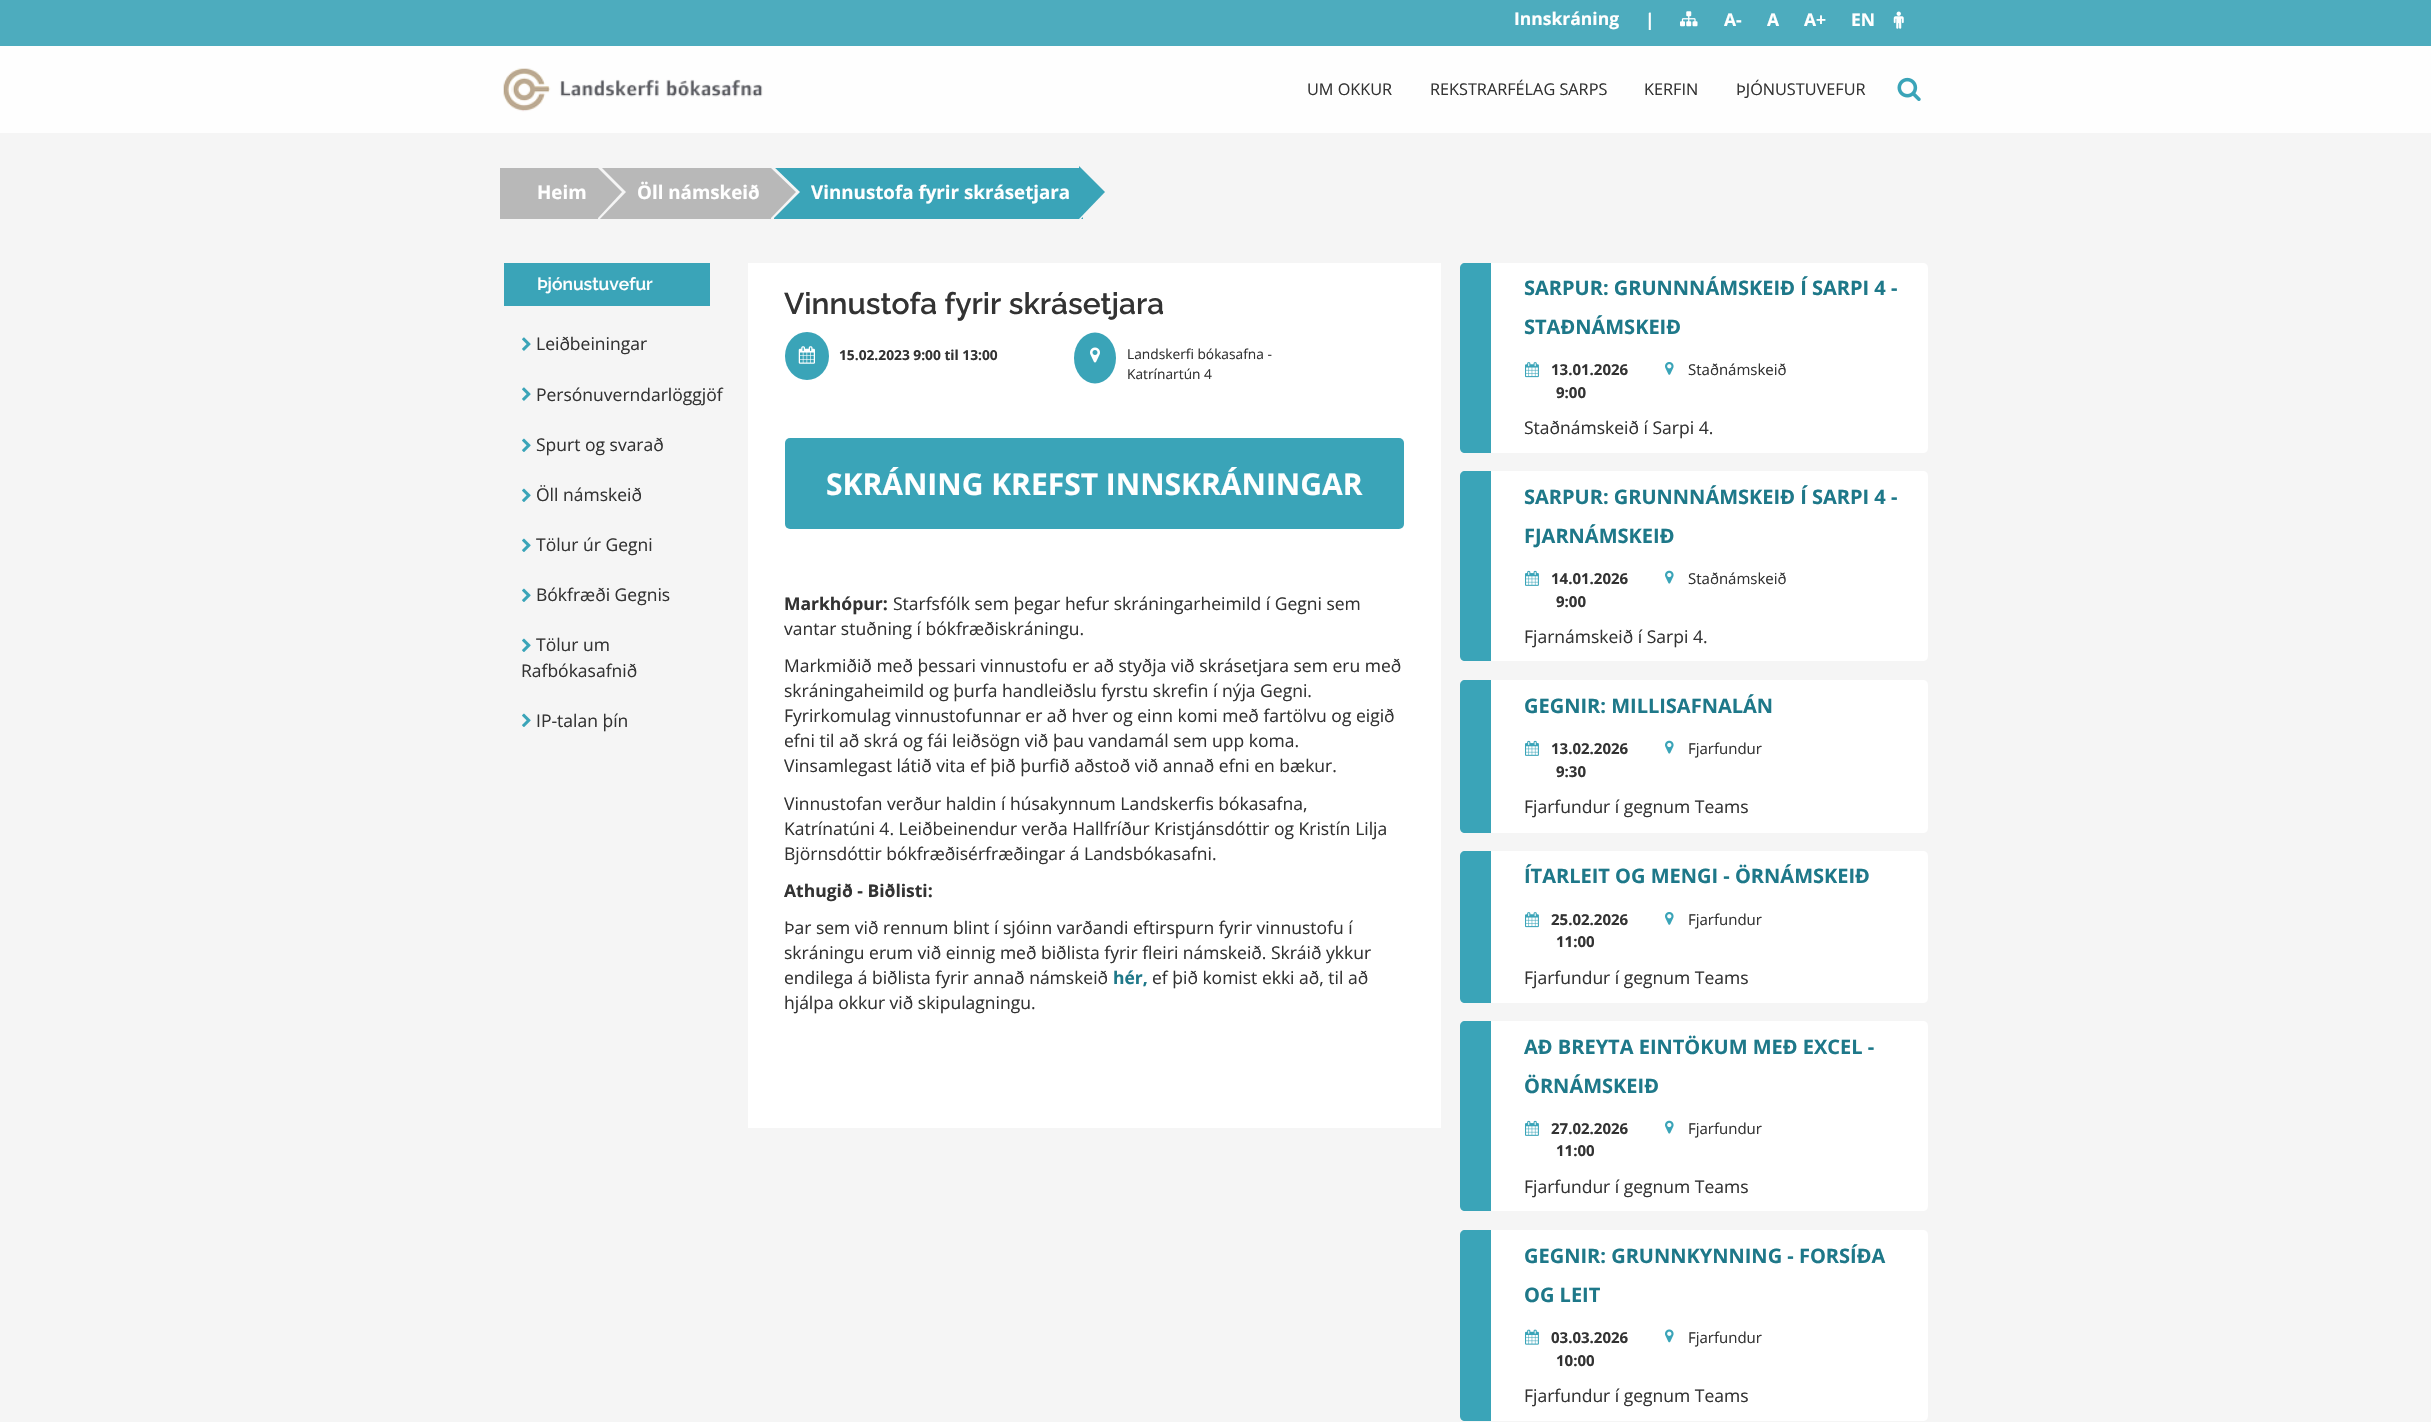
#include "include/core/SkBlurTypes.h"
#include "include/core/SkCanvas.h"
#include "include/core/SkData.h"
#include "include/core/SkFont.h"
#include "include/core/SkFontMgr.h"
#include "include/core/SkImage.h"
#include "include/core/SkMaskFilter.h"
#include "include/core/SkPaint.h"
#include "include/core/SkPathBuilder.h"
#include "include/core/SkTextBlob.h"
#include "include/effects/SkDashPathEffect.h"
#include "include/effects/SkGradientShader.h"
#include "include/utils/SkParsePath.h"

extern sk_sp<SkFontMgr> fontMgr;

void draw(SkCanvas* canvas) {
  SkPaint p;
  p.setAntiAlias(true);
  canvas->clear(SkColorSetRGB(245, 245, 245));
  p.setColor(SkColorSetRGB(77, 172, 190));
  canvas->drawRect(SkRect::MakeLTRB(0, 0, 2431, 46), p);
  canvas->drawImageRect(SkImages::DeferredFromEncodedData(SkData::MakeFromFileName("images/1.png")), SkRect::MakeLTRB(1680, 11, 1698, 27), SkSamplingOptions());
  canvas->drawImageRect(SkImages::DeferredFromEncodedData(SkData::MakeFromFileName("images/2.png")), SkRect::MakeLTRB(1893, 11, 1904, 29), SkSamplingOptions());
  p.setColor(SkColorSetRGB(254, 254, 254));
  canvas->drawRect(SkRect::MakeLTRB(0, 46, 2431, 133), p);
  canvas->drawImageRect(SkImages::DeferredFromEncodedData(SkData::MakeFromFileName("images/3.png")), SkRect::MakeLTRB(503, 68, 763, 112), SkSamplingOptions());
  canvas->drawImageRect(SkImages::DeferredFromEncodedData(SkData::MakeFromFileName("images/4.png")), SkRect::MakeLTRB(1897, 77, 1921, 101), SkSamplingOptions());
  p.setColor(SkColorSetRGB(184, 184, 184));
  canvas->drawRect(SkRect::MakeLTRB(500, 168, 598, 219), p);
  canvas->drawRect(SkRect::MakeLTRB(600, 168, 771, 219), p);
  p.setColor(SkColorSetRGB(245, 245, 245));
  canvas->drawPath(SkPathBuilder().moveTo(598, 221).lineTo(598, 164).lineTo(626, 192).close().detach(), p);
  p.setColor(SkColorSetRGB(184, 184, 184));
  canvas->drawPath(SkPathBuilder().moveTo(598, 218).lineTo(598, 168).lineTo(622, 192).close().detach(), p);
  p.setColor(SkColorSetRGB(58, 164, 184));
  canvas->drawRect(SkRect::MakeLTRB(774, 168, 1083, 219), p);
  p.setColor(SkColorSetRGB(245, 245, 245));
  canvas->drawPath(SkPathBuilder().moveTo(771, 221).lineTo(771, 164).lineTo(800, 192).close().detach(), p);
  p.setColor(SkColorSetRGB(184, 184, 184));
  canvas->drawPath(SkPathBuilder().moveTo(771, 218).lineTo(771, 168).lineTo(796, 192).close().detach(), p);
  p.setColor(SkColorSetRGB(245, 245, 245));
  canvas->drawPath(SkPathBuilder().moveTo(1079, 221).lineTo(1079, 164).lineTo(1108, 192).close().detach(), p);
  p.setColor(SkColorSetRGB(58, 164, 184));
  canvas->drawPath(SkPathBuilder().moveTo(1079, 219).lineTo(1079, 166).lineTo(1105, 192).close().detach(), p);
  canvas->drawRect(SkRect::MakeLTRB(504, 263, 710, 306), p);
  canvas->drawImageRect(SkImages::DeferredFromEncodedData(SkData::MakeFromFileName("images/5.png")), SkRect::MakeLTRB(522, 337, 531, 351), SkSamplingOptions());
  canvas->drawImageRect(SkImages::DeferredFromEncodedData(SkData::MakeFromFileName("images/5.png")), SkRect::MakeLTRB(522, 387, 531, 401), SkSamplingOptions());
  canvas->drawImageRect(SkImages::DeferredFromEncodedData(SkData::MakeFromFileName("images/6.png")), SkRect::MakeLTRB(522, 438, 531, 452), SkSamplingOptions());
  canvas->drawImageRect(SkImages::DeferredFromEncodedData(SkData::MakeFromFileName("images/6.png")), SkRect::MakeLTRB(522, 488, 531, 502), SkSamplingOptions());
  canvas->drawImageRect(SkImages::DeferredFromEncodedData(SkData::MakeFromFileName("images/6.png")), SkRect::MakeLTRB(522, 538, 531, 552), SkSamplingOptions());
  canvas->drawImageRect(SkImages::DeferredFromEncodedData(SkData::MakeFromFileName("images/6.png")), SkRect::MakeLTRB(522, 588, 531, 602), SkSamplingOptions());
  canvas->drawImageRect(SkImages::DeferredFromEncodedData(SkData::MakeFromFileName("images/6.png")), SkRect::MakeLTRB(522, 638, 531, 652), SkSamplingOptions());
  canvas->drawImageRect(SkImages::DeferredFromEncodedData(SkData::MakeFromFileName("images/6.png")), SkRect::MakeLTRB(522, 713, 531, 727), SkSamplingOptions());
  p.setColor(SK_ColorWHITE);
  canvas->drawRect(SkRect::MakeLTRB(748, 263, 1441, 1128), p);
  p.setColor(SkColorSetRGB(58, 164, 184));
  canvas->drawOval(SkRect::MakeLTRB(785, 332, 829, 380), p);
  canvas->drawImageRect(SkImages::DeferredFromEncodedData(SkData::MakeFromFileName("images/7.png")), SkRect::MakeLTRB(798, 346, 815, 364), SkSamplingOptions());
  canvas->drawOval(SkRect::MakeLTRB(1074, 332.5f, 1116, 383.5f), p);
  canvas->drawImageRect(SkImages::DeferredFromEncodedData(SkData::MakeFromFileName("images/8.png")), SkRect::MakeLTRB(1090, 347, 1100, 363), SkSamplingOptions());
  canvas->drawRoundRect(SkRect::MakeLTRB(785, 438, 1404, 529), 5, 5, p);
  canvas->drawPath(SkPathBuilder().moveTo(1465, 263).lineTo(1491, 263).lineTo(1491, 453).lineTo(1465, 453).cubicTo(1462, 453, 1460, 451, 1460, 448).lineTo(1460, 268).cubicTo(1460, 265, 1462, 263, 1465, 263).close().detach(), p);
  p.setColor(SK_ColorWHITE);
  canvas->drawPath(SkPathBuilder().moveTo(1491, 263).lineTo(1923, 263).cubicTo(1926, 263, 1928, 265, 1928, 268).lineTo(1928, 448).cubicTo(1928, 451, 1926, 453, 1923, 453).lineTo(1491, 453).close().detach(), p);
  canvas->drawImageRect(SkImages::DeferredFromEncodedData(SkData::MakeFromFileName("images/9.png")), SkRect::MakeLTRB(1525, 362, 1539, 378), SkSamplingOptions());
  canvas->drawImageRect(SkImages::DeferredFromEncodedData(SkData::MakeFromFileName("images/10.png")), SkRect::MakeLTRB(1665, 362, 1674, 375), SkSamplingOptions());
  p.setColor(SkColorSetRGB(58, 164, 184));
  canvas->drawPath(SkPathBuilder().moveTo(1465, 471).lineTo(1491, 471).lineTo(1491, 661).lineTo(1465, 661).cubicTo(1462, 661, 1460, 659, 1460, 656).lineTo(1460, 476).cubicTo(1460, 473, 1462, 471, 1465, 471).close().detach(), p);
  p.setColor(SK_ColorWHITE);
  canvas->drawPath(SkPathBuilder().moveTo(1491, 471).lineTo(1923, 471).cubicTo(1926, 471, 1928, 473, 1928, 476).lineTo(1928, 656).cubicTo(1928, 659, 1926, 661, 1923, 661).lineTo(1491, 661).close().detach(), p);
  canvas->drawImageRect(SkImages::DeferredFromEncodedData(SkData::MakeFromFileName("images/11.png")), SkRect::MakeLTRB(1525, 570, 1539, 586), SkSamplingOptions());
  canvas->drawImageRect(SkImages::DeferredFromEncodedData(SkData::MakeFromFileName("images/12.png")), SkRect::MakeLTRB(1665, 570, 1674, 584), SkSamplingOptions());
  p.setColor(SkColorSetRGB(58, 164, 184));
  canvas->drawPath(SkPathBuilder().moveTo(1465, 680).lineTo(1491, 680).lineTo(1491, 833).lineTo(1465, 833).cubicTo(1462, 833, 1460, 831, 1460, 828).lineTo(1460, 685).cubicTo(1460, 682, 1462, 680, 1465, 680).close().detach(), p);
  p.setColor(SK_ColorWHITE);
  canvas->drawPath(SkPathBuilder().moveTo(1491, 680).lineTo(1923, 680).cubicTo(1926, 680, 1928, 682, 1928, 685).lineTo(1928, 828).cubicTo(1928, 831, 1926, 833, 1923, 833).lineTo(1491, 833).close().detach(), p);
  canvas->drawImageRect(SkImages::DeferredFromEncodedData(SkData::MakeFromFileName("images/11.png")), SkRect::MakeLTRB(1525, 740, 1539, 756), SkSamplingOptions());
  canvas->drawImageRect(SkImages::DeferredFromEncodedData(SkData::MakeFromFileName("images/12.png")), SkRect::MakeLTRB(1665, 740, 1674, 754), SkSamplingOptions());
  p.setColor(SkColorSetRGB(58, 164, 184));
  canvas->drawPath(SkPathBuilder().moveTo(1465, 851).lineTo(1491, 851).lineTo(1491, 1003).lineTo(1465, 1003).cubicTo(1462, 1003, 1460, 1001, 1460, 998).lineTo(1460, 856).cubicTo(1460, 853, 1462, 851, 1465, 851).close().detach(), p);
  p.setColor(SK_ColorWHITE);
  canvas->drawPath(SkPathBuilder().moveTo(1491, 851).lineTo(1923, 851).cubicTo(1926, 851, 1928, 853, 1928, 856).lineTo(1928, 998).cubicTo(1928, 1001, 1926, 1003, 1923, 1003).lineTo(1491, 1003).close().detach(), p);
  canvas->drawImageRect(SkImages::DeferredFromEncodedData(SkData::MakeFromFileName("images/9.png")), SkRect::MakeLTRB(1525, 912, 1539, 928), SkSamplingOptions());
  canvas->drawImageRect(SkImages::DeferredFromEncodedData(SkData::MakeFromFileName("images/10.png")), SkRect::MakeLTRB(1665, 912, 1674, 925), SkSamplingOptions());
  p.setColor(SkColorSetRGB(58, 164, 184));
  canvas->drawPath(SkPathBuilder().moveTo(1465, 1021).lineTo(1491, 1021).lineTo(1491, 1211).lineTo(1465, 1211).cubicTo(1462, 1211, 1460, 1209, 1460, 1206).lineTo(1460, 1026).cubicTo(1460, 1023, 1462, 1021, 1465, 1021).close().detach(), p);
  p.setColor(SK_ColorWHITE);
  canvas->drawPath(SkPathBuilder().moveTo(1491, 1021).lineTo(1923, 1021).cubicTo(1926, 1021, 1928, 1023, 1928, 1026).lineTo(1928, 1206).cubicTo(1928, 1209, 1926, 1211, 1923, 1211).lineTo(1491, 1211).close().detach(), p);
  canvas->drawImageRect(SkImages::DeferredFromEncodedData(SkData::MakeFromFileName("images/11.png")), SkRect::MakeLTRB(1525, 1120, 1539, 1136), SkSamplingOptions());
  canvas->drawImageRect(SkImages::DeferredFromEncodedData(SkData::MakeFromFileName("images/12.png")), SkRect::MakeLTRB(1665, 1120, 1674, 1134), SkSamplingOptions());
  p.setColor(SkColorSetRGB(58, 164, 184));
  canvas->drawPath(SkPathBuilder().moveTo(1465, 1230).lineTo(1491, 1230).lineTo(1491, 1421).lineTo(1465, 1421).cubicTo(1462, 1421, 1460, 1419, 1460, 1416).lineTo(1460, 1235).cubicTo(1460, 1232, 1462, 1230, 1465, 1230).close().detach(), p);
  p.setColor(SK_ColorWHITE);
  canvas->drawPath(SkPathBuilder().moveTo(1491, 1230).lineTo(1923, 1230).cubicTo(1926, 1230, 1928, 1232, 1928, 1235).lineTo(1928, 1416).cubicTo(1928, 1419, 1926, 1421, 1923, 1421).lineTo(1491, 1421).close().detach(), p);
  canvas->drawImageRect(SkImages::DeferredFromEncodedData(SkData::MakeFromFileName("images/13.png")), SkRect::MakeLTRB(1525, 1329, 1539, 1345), SkSamplingOptions());
  canvas->drawImageRect(SkImages::DeferredFromEncodedData(SkData::MakeFromFileName("images/14.png")), SkRect::MakeLTRB(1665, 1329, 1674, 1343), SkSamplingOptions());
  SkFont font1(fontMgr->matchFamilyStyle("Open Sans", SkFontStyle::Bold()), 17.5f);
  font1.setSubpixel(true);
  canvas->drawString("Innskráning", 1514, 25, font1, p);
  canvas->drawString("|", 1645, 26, font1, p);
  canvas->drawString("A-", 1724, 26, font1, p);
  canvas->drawString("A", 1767, 26, font1, p);
  canvas->drawString("A+", 1804, 26, font1, p);
  canvas->drawString("EN", 1851, 26, font1, p);
  SkFont font2(fontMgr->matchFamilyStyle("Open Sans", SkFontStyle::Normal()), 16.25f);
  font2.setSubpixel(true);
  p.setColor(SkColorSetRGB(51, 51, 51));
  canvas->drawString("UM OKKUR", 1307, 95, font2, p);
  canvas->drawString("REKSTRARFÉLAG SARPS", 1430, 95, font2, p);
  canvas->drawString("KERFIN", 1644, 95, font2, p);
  canvas->drawString("ÞJÓNUSTUVEFUR", 1736, 95, font2, p);
  SkFont font3(fontMgr->matchFamilyStyle("Open Sans", SkFontStyle::Bold()), 18.75f);
  font3.setSubpixel(true);
  p.setColor(SK_ColorWHITE);
  canvas->drawString("Heim", 537, 199, font3, p);
  canvas->drawString("Öll námskeið", 637, 199, font3, p);
  canvas->drawString("Vinnustofa fyrir skrásetjara", 811, 199, font3, p);
  SkFont font4(fontMgr->matchFamilyStyle("Raleway", SkFontStyle(600, SkFontStyle::kNormal_Width, SkFontStyle::kUpright_Slant)), 17.5f);
  font4.setSubpixel(true);
  canvas->drawString("Þjónustuvefur", 537, 290, font4, p);
  SkFont font5(fontMgr->matchFamilyStyle("Open Sans", SkFontStyle::Normal()), 17.5f);
  font5.setSubpixel(true);
  p.setColor(SkColorSetRGB(51, 51, 51));
  canvas->drawString("Leiðbeiningar", 536, 350, font5, p);
  canvas->drawString("Persónuverndarlöggjöf", 536, 401, font5, p);
  canvas->drawString("Spurt og svarað", 536, 451, font5, p);
  canvas->drawString("Öll námskeið", 536, 501, font5, p);
  canvas->drawString("Tölur úr Gegni", 536, 551, font5, p);
  canvas->drawString("Bókfræði Gegnis", 536, 601, font5, p);
  canvas->drawString("Tölur um", 536, 651, font5, p);
  canvas->drawString("Rafbókasafnið", 521, 677, font5, p);
  canvas->drawString("IP-talan þín", 536, 727, font5, p);
  SkFont font6(fontMgr->matchFamilyStyle("Raleway", SkFontStyle(600, SkFontStyle::kNormal_Width, SkFontStyle::kUpright_Slant)), 30);
  font6.setSubpixel(true);
  canvas->drawString("Vinnustofa fyrir skrásetjara", 784, 314, font6, p);
  SkFont font7(fontMgr->matchFamilyStyle("Open Sans", SkFontStyle::Bold()), 13.75f);
  font7.setSubpixel(true);
  canvas->drawString("15.02.2023 9:00 til 13:00", 839, 360, font7, p);
  SkFont font8(fontMgr->matchFamilyStyle("Open Sans", SkFontStyle::Normal()), 13.75f);
  font8.setSubpixel(true);
  canvas->drawString("Landskerfi bókasafna -", 1127, 359, font8, p);
  canvas->drawString("Katrínartún 4", 1127, 379, font8, p);
  SkFont font9(fontMgr->matchFamilyStyle("Open Sans", SkFontStyle::Bold()), 30);
  font9.setSubpixel(true);
  p.setColor(SK_ColorWHITE);
  canvas->drawString("SKRÁNING KREFST INNSKRÁNINGAR", 826, 495, font9, p);
  p.setColor(SkColorSetRGB(51, 51, 51));
  canvas->drawString("Markhópur:", 784, 610, font1, p);
  canvas->drawString("Starfsfólk sem þegar hefur skráningarheimild í Gegni sem", 893, 610, font5, p);
  canvas->drawString("vantar stuðning í bókfræðiskráningu.", 784, 635, font5, p);
  canvas->drawString("Markmiðið með þessari vinnustofu er að styðja við skrásetjara sem eru með", 784, 672, font5, p);
  canvas->drawString("skráningaheimild og þurfa handleiðslu fyrstu skrefin í nýja Gegni.", 784, 697, font5, p);
  canvas->drawString("Fyrirkomulag vinnustofunnar er að hver og einn komi með fartölvu og eigið", 784, 722, font5, p);
  canvas->drawString("efni til að skrá og fái leiðsögn við þau vandamál sem upp koma.", 784, 747, font5, p);
  canvas->drawString("Vinsamlegast látið vita ef þið þurfið aðstoð við annað efni en bækur.", 784, 772, font5, p);
  canvas->drawString("Vinnustofan verður haldin í húsakynnum Landskerfis bókasafna,", 784, 810, font5, p);
  canvas->drawString("Katrínatúni 4. Leiðbeinendur verða Hallfríður Kristjánsdóttir og Kristín Lilja", 784, 835, font5, p);
  canvas->drawString("Björnsdóttir bókfræðisérfræðingar á Landsbókasafni.", 784, 860, font5, p);
  canvas->drawString("Athugið - Biðlisti:", 784, 897, font1, p);
  canvas->drawString("Þar sem við rennum blint í sjóinn varðandi eftirspurn fyrir vinnustofu í", 784, 934, font5, p);
  canvas->drawString("skráningu erum við einnig með biðlista fyrir fleiri námskeið. Skráið ykkur", 784, 959, font5, p);
  canvas->drawString("endilega á biðlista fyrir annað námskeið", 784, 984, font5, p);
  p.setColor(SkColorSetRGB(30, 120, 137));
  canvas->drawString("hér,", 1113, 984, font1, p);
  p.setColor(SkColorSetRGB(51, 51, 51));
  canvas->drawString("ef þið komist ekki að, til að", 1152, 984, font5, p);
  canvas->drawString("hjálpa okkur við skipulagningu.", 784, 1009, font5, p);
  SkFont font10(fontMgr->matchFamilyStyle("Open Sans", SkFontStyle::Bold()), 20);
  font10.setSubpixel(true);
  p.setColor(SkColorSetRGB(30, 120, 137));
  canvas->drawString("SARPUR: GRUNNNÁMSKEIÐ Í SARPI 4 -", 1524, 295, font10, p);
  canvas->drawString("STAÐNÁMSKEIÐ", 1524, 334, font10, p);
  SkFont font11(fontMgr->matchFamilyStyle("Open Sans", SkFontStyle::Bold()), 15);
  font11.setSubpixel(true);
  p.setColor(SkColorSetRGB(51, 51, 51));
  canvas->drawString("13.01.2026", 1551, 375, font11, p);
  canvas->drawString("9:00", 1556, 398, font11, p);
  SkFont font12(fontMgr->matchFamilyStyle("Open Sans", SkFontStyle::Normal()), 15);
  font12.setSubpixel(true);
  canvas->drawString("Staðnámskeið", 1688, 375, font12, p);
  canvas->drawString("Staðnámskeið í Sarpi 4.", 1524, 434, font5, p);
  p.setColor(SkColorSetRGB(30, 120, 137));
  canvas->drawString("SARPUR: GRUNNNÁMSKEIÐ Í SARPI 4 -", 1524, 504, font10, p);
  canvas->drawString("FJARNÁMSKEIÐ", 1524, 543, font10, p);
  p.setColor(SkColorSetRGB(51, 51, 51));
  canvas->drawString("14.01.2026", 1551, 584, font11, p);
  canvas->drawString("9:00", 1556, 607, font11, p);
  canvas->drawString("Staðnámskeið", 1688, 584, font12, p);
  canvas->drawString("Fjarnámskeið í Sarpi 4.", 1524, 643, font5, p);
  p.setColor(SkColorSetRGB(30, 120, 137));
  canvas->drawString("GEGNIR: MILLISAFNALÁN", 1524, 713, font10, p);
  p.setColor(SkColorSetRGB(51, 51, 51));
  canvas->drawString("13.02.2026", 1551, 754, font11, p);
  canvas->drawString("9:30", 1556, 777, font11, p);
  canvas->drawString("Fjarfundur", 1688, 754, font12, p);
  canvas->drawString("Fjarfundur í gegnum Teams", 1524, 813, font5, p);
  p.setColor(SkColorSetRGB(30, 120, 137));
  canvas->drawString("ÍTARLEIT OG MENGI - ÖRNÁMSKEIÐ", 1524, 883, font10, p);
  p.setColor(SkColorSetRGB(51, 51, 51));
  canvas->drawString("25.02.2026", 1551, 925, font11, p);
  canvas->drawString("11:00", 1556, 947, font11, p);
  canvas->drawString("Fjarfundur", 1688, 925, font12, p);
  canvas->drawString("Fjarfundur í gegnum Teams", 1524, 984, font5, p);
  p.setColor(SkColorSetRGB(30, 120, 137));
  canvas->drawString("AÐ BREYTA EINTÖKUM MEÐ EXCEL -", 1524, 1054, font10, p);
  canvas->drawString("ÖRNÁMSKEIÐ", 1524, 1093, font10, p);
  p.setColor(SkColorSetRGB(51, 51, 51));
  canvas->drawString("27.02.2026", 1551, 1134, font11, p);
  canvas->drawString("11:00", 1556, 1156, font11, p);
  canvas->drawString("Fjarfundur", 1688, 1134, font12, p);
  canvas->drawString("Fjarfundur í gegnum Teams", 1524, 1193, font5, p);
  p.setColor(SkColorSetRGB(30, 120, 137));
  canvas->drawString("GEGNIR: GRUNNKYNNING - FORSÍÐA", 1524, 1263, font10, p);
  canvas->drawString("OG LEIT", 1524, 1302, font10, p);
  p.setColor(SkColorSetRGB(51, 51, 51));
  canvas->drawString("03.03.2026", 1551, 1343, font11, p);
  canvas->drawString("10:00", 1556, 1366, font11, p);
  canvas->drawString("Fjarfundur", 1688, 1343, font12, p);
  canvas->drawString("Fjarfundur í gegnum Teams", 1524, 1402, font5, p);
}
